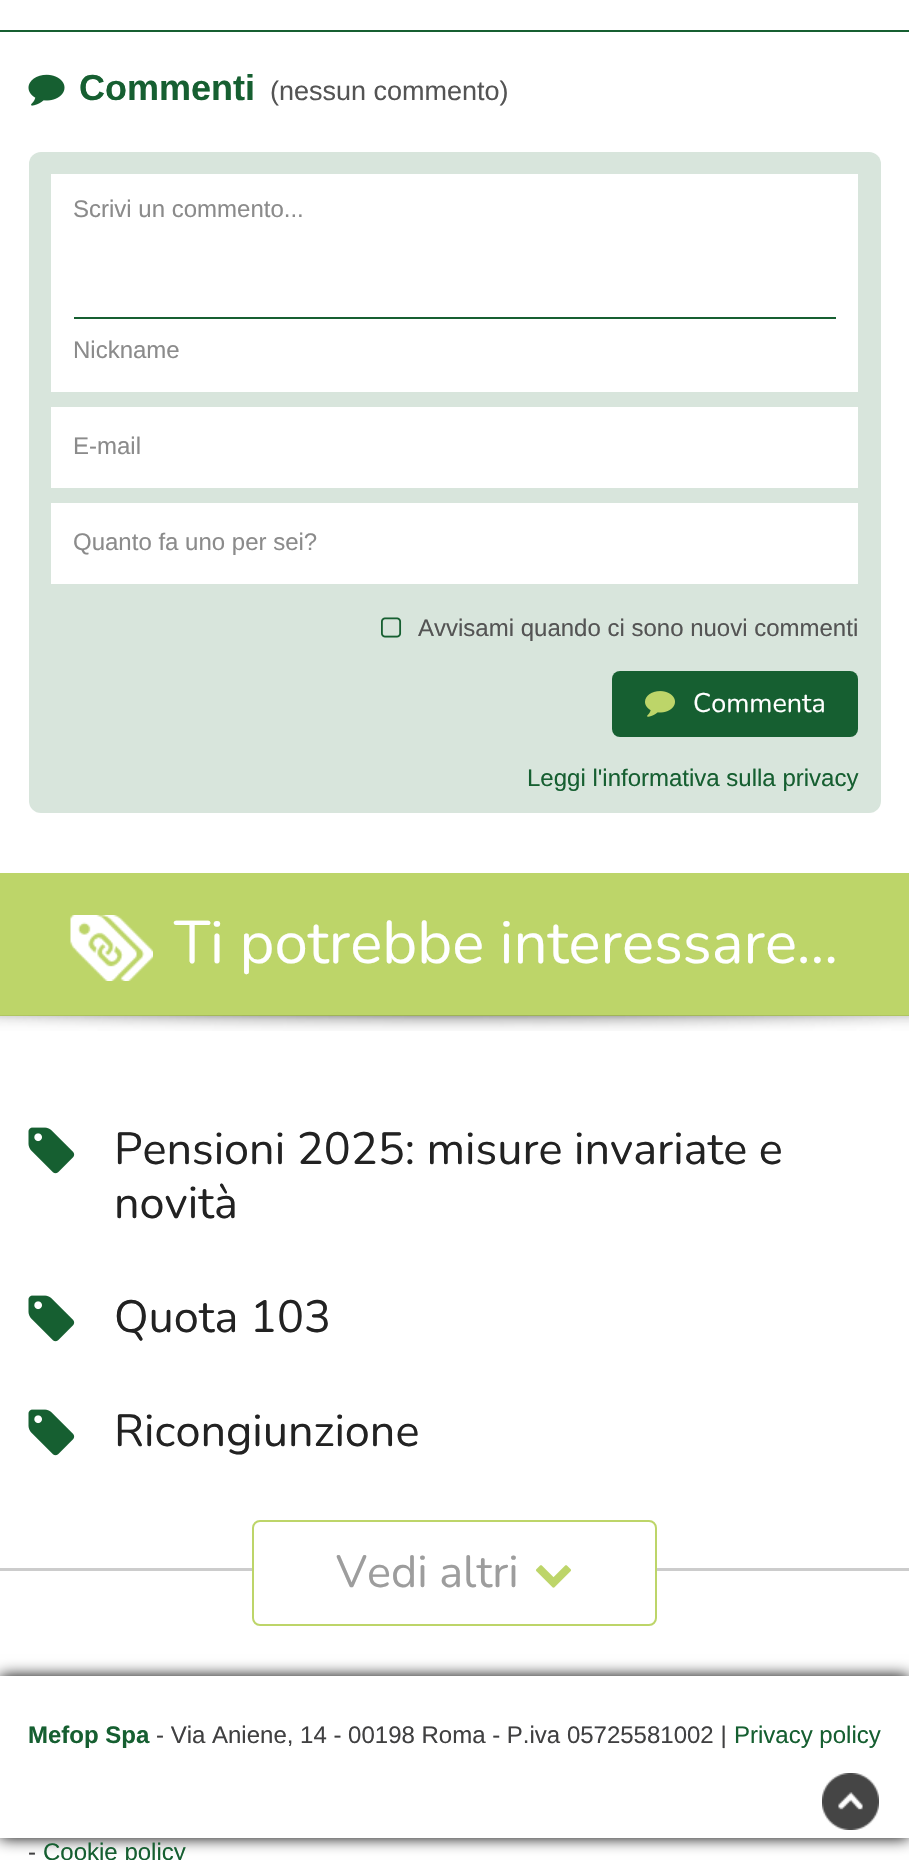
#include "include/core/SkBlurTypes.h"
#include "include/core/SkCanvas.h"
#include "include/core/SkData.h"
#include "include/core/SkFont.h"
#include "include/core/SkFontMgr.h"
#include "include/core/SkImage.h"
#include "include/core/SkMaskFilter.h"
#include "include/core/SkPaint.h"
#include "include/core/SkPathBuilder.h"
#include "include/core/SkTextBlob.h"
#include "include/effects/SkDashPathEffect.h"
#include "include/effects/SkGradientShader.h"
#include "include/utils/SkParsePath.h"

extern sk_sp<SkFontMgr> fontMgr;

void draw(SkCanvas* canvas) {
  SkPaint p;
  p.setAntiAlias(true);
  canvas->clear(SK_ColorWHITE);
  p.setColor(SkColorSetRGB(22, 95, 49));
  canvas->drawRect(SkRect::MakeLTRB(0, 30, 909, 32), p);
  canvas->drawImageRect(SkImages::DeferredFromEncodedData(SkData::MakeFromFileName("images/1.png")), SkRect::MakeLTRB(28, 74, 65, 106), SkSamplingOptions());
  p.setColor(SkColorSetRGB(216, 229, 220));
  canvas->drawRoundRect(SkRect::MakeLTRB(29, 152, 881, 813), 12, 12, p);
  p.setColor(SK_ColorWHITE);
  canvas->drawRect(SkRect::MakeLTRB(51, 174, 858, 392), p);
  p.setColor(SkColorSetRGB(22, 95, 49));
  canvas->drawRect(SkRect::MakeLTRB(74, 317, 836, 319), p);
  p.setColor(SK_ColorWHITE);
  canvas->drawRect(SkRect::MakeLTRB(51, 407, 858, 488), p);
  canvas->drawRect(SkRect::MakeLTRB(51, 503, 858, 584), p);
  canvas->drawImageRect(SkImages::DeferredFromEncodedData(SkData::MakeFromFileName("images/2.png")), SkRect::MakeLTRB(381, 617, 402, 638), SkSamplingOptions());
  p.setColor(SkColorSetRGB(22, 95, 49));
  canvas->drawRoundRect(SkRect::MakeLTRB(612, 671, 858, 737), 8, 8, p);
  canvas->drawImageRect(SkImages::DeferredFromEncodedData(SkData::MakeFromFileName("images/3.png")), SkRect::MakeLTRB(645, 691, 675, 717), SkSamplingOptions());
  p.setColor(SkColorSetRGB(189, 213, 105));
  canvas->drawRect(SkRect::MakeLTRB(0, 873, 909, 1016), p);
  canvas->drawImageRect(SkImages::DeferredFromEncodedData(SkData::MakeFromFileName("images/4.png")), SkRect::MakeLTRB(70, 915, 153, 981), SkSamplingOptions());
  canvas->drawImageRect(SkImages::DeferredFromEncodedData(SkData::MakeFromFileName("images/5.png")), SkRect::MakeLTRB(0, 1015, 909, 1031), SkSamplingOptions());
  canvas->drawImageRect(SkImages::DeferredFromEncodedData(SkData::MakeFromFileName("images/6.png")), SkRect::MakeLTRB(28, 1127, 75, 1174), SkSamplingOptions());
  canvas->drawImageRect(SkImages::DeferredFromEncodedData(SkData::MakeFromFileName("images/6.png")), SkRect::MakeLTRB(28, 1295, 75, 1342), SkSamplingOptions());
  canvas->drawImageRect(SkImages::DeferredFromEncodedData(SkData::MakeFromFileName("images/6.png")), SkRect::MakeLTRB(28, 1409, 75, 1456), SkSamplingOptions());
  p.setColor(SkColorSetRGB(204, 204, 204));
  canvas->drawRect(SkRect::MakeLTRB(0, 1568, 909, 1571), p);
  p.setColor(SK_ColorWHITE);
  canvas->drawRoundRect(SkRect::MakeLTRB(253, 1521, 656, 1625), 7, 7, p);
  p.setStyle(SkPaint::kStroke_Style);
  p.setStrokeWidth(2);
  p.setColor(SkColorSetRGB(189, 213, 105));
  canvas->drawRoundRect(SkRect::MakeLTRB(253, 1521, 656, 1625), 7, 7, p);
  canvas->drawImageRect(SkImages::DeferredFromEncodedData(SkData::MakeFromFileName("images/7.png")), SkRect::MakeLTRB(536, 1565, 571, 1588), SkSamplingOptions());
  canvas->save();
  canvas->clipPath(SkPathBuilder(SkPathFillType::kEvenOdd).moveTo(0, 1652).lineTo(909, 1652).lineTo(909, 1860).lineTo(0, 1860).close().moveTo(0, 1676).lineTo(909, 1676).lineTo(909, 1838).lineTo(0, 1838).close().detach(), true);
  p.setStyle(SkPaint::kFill_Style);
  p.setColor(SkColorSetRGB(1, 1, 1));
  p.setMaskFilter(SkMaskFilter::MakeBlur(kNormal_SkBlurStyle, 7.5f));
  canvas->drawRect(SkRect::MakeLTRB(0, 1676, 909, 1838), p);
  p.setMaskFilter(nullptr);
  canvas->restore();
  canvas->drawImageRect(SkImages::DeferredFromEncodedData(SkData::MakeFromFileName("images/8.png")), SkRect::MakeLTRB(822, 1773, 879, 1830), SkSamplingOptions());
  SkFont font1(fontMgr->matchFamilyStyle("Liberation Sans", SkFontStyle::Bold()), 36);
  font1.setSubpixel(true);
  p.setColor(SkColorSetRGB(22, 95, 49));
  canvas->drawString("Commenti", 79, 100, font1, p);
  SkFont font2(fontMgr->matchFamilyStyle("Liberation Sans", SkFontStyle::Normal()), 27);
  font2.setSubpixel(true);
  p.setColor(SkColorSetRGB(84, 84, 84));
  canvas->drawString("(nessun commento)", 270, 100, font2, p);
  SkFont font3(fontMgr->matchFamilyStyle("Liberation Sans", SkFontStyle::Normal()), 24);
  font3.setSubpixel(true);
  p.setColor(SkColorSetRGB(139, 139, 139));
  canvas->drawString("Scrivi un commento...", 73, 217, font3, p);
  canvas->drawString("Nickname", 73, 358, font3, p);
  canvas->drawString("E-mail", 73, 454, font3, p);
  canvas->drawString("Quanto fa uno per sei?", 73, 550, font3, p);
  p.setColor(SkColorSetRGB(84, 84, 84));
  canvas->drawString("Avvisami quando ci sono nuovi commenti", 418, 636, font3, p);
  SkFont font4(fontMgr->matchFamilyStyle("Nunito", SkFontStyle::Normal()), 27);
  font4.setSubpixel(true);
  p.setColor(SK_ColorWHITE);
  canvas->drawString("Commenta", 693, 712, font4, p);
  p.setColor(SkColorSetRGB(22, 95, 49));
  canvas->drawString("Leggi l'informativa sulla privacy", 527, 786, font3, p);
  SkFont font5(fontMgr->matchFamilyStyle("Nunito", SkFontStyle::Normal()), 60);
  font5.setSubpixel(true);
  p.setColor(SK_ColorWHITE);
  canvas->drawString("Ti potrebbe interessare...", 174, 963, font5, p);
  SkFont font6(fontMgr->matchFamilyStyle("Nunito", SkFontStyle::Normal()), 45);
  font6.setSubpixel(true);
  p.setColor(SkColorSetRGB(34, 34, 34));
  canvas->drawString("Pensioni 2025: misure invariate e", 114, 1164, font6, p);
  canvas->drawString("novità", 114, 1218, font6, p);
  canvas->drawString("Quota 103", 114, 1332, font6, p);
  canvas->drawString("Ricongiunzione", 114, 1446, font6, p);
  p.setColor(SkColorSetRGB(157, 157, 157));
  canvas->drawString("Vedi altri", 336, 1587, font6, p);
  SkFont font7(fontMgr->matchFamilyStyle("Liberation Sans", SkFontStyle::Bold()), 24);
  font7.setSubpixel(true);
  p.setColor(SkColorSetRGB(22, 95, 49));
  canvas->drawString("Mefop Spa", 28, 1743, font7, p);
  p.setColor(SkColorSetRGB(64, 64, 65));
  canvas->drawString("- Via Aniene, 14 - 00198 Roma - P.iva 05725581002 |", 156, 1743, font3, p);
  p.setColor(SkColorSetRGB(22, 95, 49));
  canvas->drawString("Privacy policy", 734, 1743, font3, p);
  p.setColor(SkColorSetRGB(64, 64, 65));
  canvas->drawString("-", 28, 1860, font3, p);
  p.setColor(SkColorSetRGB(22, 95, 49));
  canvas->drawString("Cookie policy", 43, 1860, font3, p);
}
